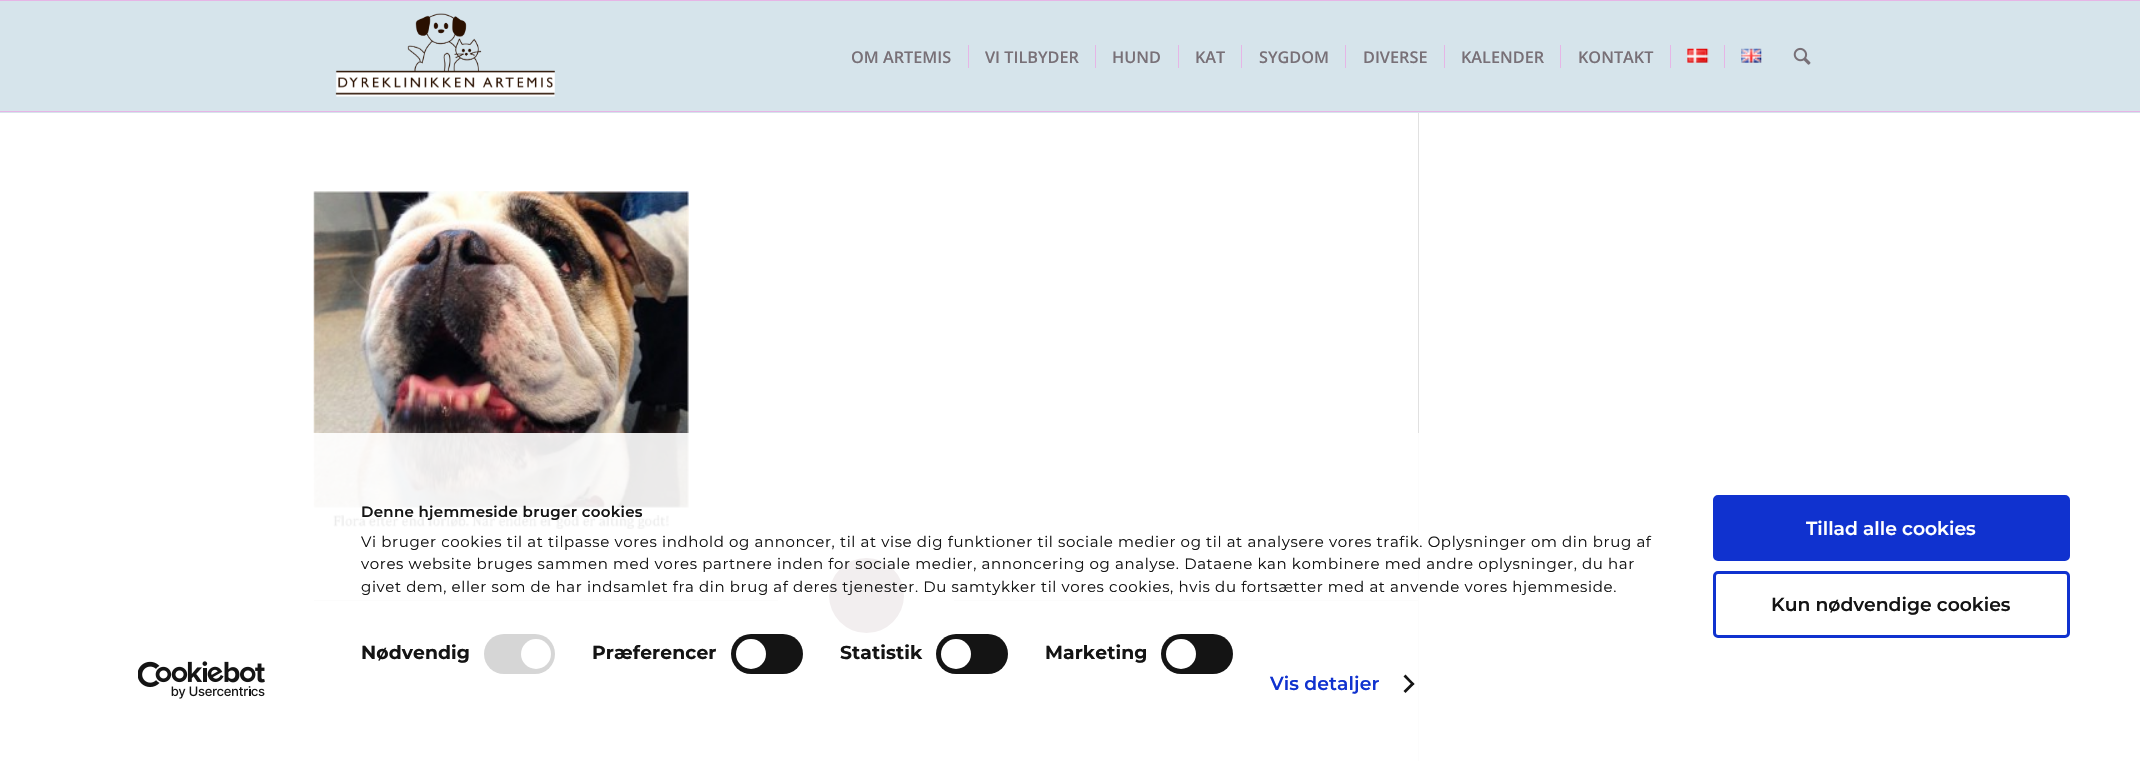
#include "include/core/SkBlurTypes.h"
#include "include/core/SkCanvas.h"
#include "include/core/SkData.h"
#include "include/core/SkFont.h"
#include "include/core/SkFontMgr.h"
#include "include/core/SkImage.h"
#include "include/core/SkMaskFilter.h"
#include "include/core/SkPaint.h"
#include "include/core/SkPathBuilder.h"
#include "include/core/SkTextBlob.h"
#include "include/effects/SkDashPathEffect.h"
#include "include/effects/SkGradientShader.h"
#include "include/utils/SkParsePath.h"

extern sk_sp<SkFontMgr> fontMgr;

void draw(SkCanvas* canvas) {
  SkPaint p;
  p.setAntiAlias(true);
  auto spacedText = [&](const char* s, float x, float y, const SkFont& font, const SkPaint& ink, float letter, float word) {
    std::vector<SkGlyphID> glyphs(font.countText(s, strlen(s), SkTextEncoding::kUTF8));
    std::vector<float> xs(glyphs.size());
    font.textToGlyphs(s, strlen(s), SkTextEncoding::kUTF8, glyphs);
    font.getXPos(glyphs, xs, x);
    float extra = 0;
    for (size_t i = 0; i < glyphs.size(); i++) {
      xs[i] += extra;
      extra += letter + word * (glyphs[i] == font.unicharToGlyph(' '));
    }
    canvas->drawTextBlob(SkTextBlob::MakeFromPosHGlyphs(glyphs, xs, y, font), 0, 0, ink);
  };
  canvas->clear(SkColorSetRGB(214, 228, 235));
  p.setColor(SkColorSetRGB(230, 181, 230));
  canvas->drawRect(SkRect::MakeLTRB(0, 0, 2140, 1), p);
  p.setColor(SK_ColorWHITE);
  canvas->drawRect(SkRect::MakeLTRB(0, 113, 2140, 761), p);
  p.setColor(SkColorSetRGB(225, 225, 225));
  canvas->drawRect(SkRect::MakeLTRB(1418, 111, 1419, 761), p);
  p.setColor(SkColorSetRGB(215, 228, 235));
  canvas->drawRect(SkRect::MakeLTRB(1418, 111, 1419, 113), p);
  p.setColor(SkColorSetRGB(230, 181, 230));
  canvas->drawRect(SkRect::MakeLTRB(0, 111, 2140, 112), p);
  canvas->drawImageRect(SkImages::DeferredFromEncodedData(SkData::MakeFromFileName("images/1.png")), SkRect::MakeLTRB(335, 13, 555, 97), SkSamplingOptions());
  canvas->drawRect(SkRect::MakeLTRB(968, 45, 969, 68), p);
  canvas->drawRect(SkRect::MakeLTRB(1095, 45, 1096, 68), p);
  canvas->drawRect(SkRect::MakeLTRB(1178, 45, 1179, 68), p);
  canvas->drawRect(SkRect::MakeLTRB(1241, 45, 1242, 68), p);
  canvas->drawRect(SkRect::MakeLTRB(1345, 45, 1346, 68), p);
  canvas->drawRect(SkRect::MakeLTRB(1444, 45, 1445, 68), p);
  canvas->drawRect(SkRect::MakeLTRB(1560, 45, 1561, 68), p);
  canvas->drawRect(SkRect::MakeLTRB(1670, 45, 1671, 68), p);
  canvas->drawImageRect(SkImages::DeferredFromEncodedData(SkData::MakeFromFileName("images/2.png")), SkRect::MakeLTRB(1687, 48, 1709, 63), SkSamplingOptions());
  canvas->drawRect(SkRect::MakeLTRB(1724, 45, 1725, 68), p);
  canvas->drawImageRect(SkImages::DeferredFromEncodedData(SkData::MakeFromFileName("images/3.png")), SkRect::MakeLTRB(1741, 48, 1762, 63), SkSamplingOptions());
  canvas->drawImageRect(SkImages::DeferredFromEncodedData(SkData::MakeFromFileName("images/4.png")), SkRect::MakeLTRB(1793, 47, 1811, 65), SkSamplingOptions());
  canvas->drawImageRect(SkImages::DeferredFromEncodedData(SkData::MakeFromFileName("images/5.png")), SkRect::MakeLTRB(313, 191, 689, 531), SkSamplingOptions());
  p.setColor(SkColorSetRGB(225, 225, 225));
  canvas->drawRect(SkRect::MakeLTRB(314, 600, 778, 601), p);
  p.setColor(SkColorSetRGB(115, 72, 84));
  canvas->drawCircle(866.5f, 595.5f, 37.5f, p);
  p.setColor(SkColorSetRGB(225, 225, 225));
  canvas->drawRect(SkRect::MakeLTRB(954, 600, 1418, 601), p);
  p.setColor(SkColorSetARGB(230, 255, 255, 255));
  canvas->drawRoundRect(SkRect::MakeLTRB(0, 433, 2140, 761), 10, 10, p);
  p.setColor(SkColorSetRGB(214, 214, 214));
  canvas->drawRoundRect(SkRect::MakeLTRB(484, 634, 555, 674), 20, 20, p);
  p.setColor(SK_ColorWHITE);
  canvas->drawCircle(536, 654, 15, p);
  p.setColor(SkColorSetRGB(20, 20, 20));
  canvas->drawRoundRect(SkRect::MakeLTRB(731, 634, 803, 674), 20, 20, p);
  p.setColor(SK_ColorWHITE);
  canvas->drawCircle(751, 654, 15, p);
  p.setColor(SkColorSetRGB(20, 20, 20));
  canvas->drawRoundRect(SkRect::MakeLTRB(936, 634, 1008, 674), 20, 20, p);
  p.setColor(SK_ColorWHITE);
  canvas->drawCircle(956, 654, 15, p);
  p.setColor(SkColorSetRGB(20, 20, 20));
  canvas->drawRoundRect(SkRect::MakeLTRB(1161, 634, 1233, 674), 20, 20, p);
  p.setColor(SK_ColorWHITE);
  canvas->drawCircle(1181, 654, 15, p);
  p.setColor(SkColorSetRGB(20, 20, 20));
  canvas->drawPath(SkPathBuilder().moveTo(1405.5f, 674.5f).lineTo(1414.5f, 684).lineTo(1412.5f, 685.5f).lineTo(1403.5f, 676.5f).close().detach(), p);
  canvas->drawPath(SkPathBuilder().moveTo(1412.5f, 682).lineTo(1414.5f, 684).lineTo(1405.5f, 693).lineTo(1403.5f, 691).close().detach(), p);
  p.setColor(SkColorSetRGB(16, 50, 207));
  canvas->drawRoundRect(SkRect::MakeLTRB(1714.5f, 496.5f, 2068.5f, 559.5f), 3.5f, 3.5f, p);
  p.setStyle(SkPaint::kStroke_Style);
  p.setStrokeWidth(3);
  canvas->drawRoundRect(SkRect::MakeLTRB(1714.5f, 496.5f, 2068.5f, 559.5f), 3.5f, 3.5f, p);
  canvas->drawRoundRect(SkRect::MakeLTRB(1714.5f, 572.5f, 2068.5f, 636.5f), 3.5f, 3.5f, p);
  canvas->drawImageRect(SkImages::DeferredFromEncodedData(SkData::MakeFromFileName("images/6.png")), SkRect::MakeLTRB(138, 661, 265, 699), SkSamplingOptions());
  SkFont font1(fontMgr->matchFamilyStyle("Open Sans", SkFontStyle(600, SkFontStyle::kNormal_Width, SkFontStyle::kUpright_Slant)), 16.25f);
  font1.setSubpixel(true);
  p.setStyle(SkPaint::kFill_Style);
  p.setColor(SkColorSetRGB(120, 112, 119));
  canvas->drawString("OM ARTEMIS", 851, 63, font1, p);
  canvas->drawString("VI TILBYDER", 985, 63, font1, p);
  canvas->drawString("HUND", 1112, 63, font1, p);
  canvas->drawString("KAT", 1195, 63, font1, p);
  canvas->drawString("SYGDOM", 1259, 63, font1, p);
  canvas->drawString("DIVERSE", 1363, 63, font1, p);
  canvas->drawString("KALENDER", 1461, 63, font1, p);
  canvas->drawString("KONTAKT", 1578, 63, font1, p);
  SkFont font2(fontMgr->matchFamilyStyle("Montserrat", SkFontStyle(600, SkFontStyle::kNormal_Width, SkFontStyle::kUpright_Slant)), 15);
  font2.setSubpixel(true);
  p.setColor(SkColorSetRGB(20, 20, 20));
  spacedText("Denne hjemmeside bruger cookies", 361, 517, font2, p, 0.3f, 0);
  SkFont font3(fontMgr->matchFamilyStyle("Montserrat", SkFontStyle::Normal()), 15);
  font3.setSubpixel(true);
  spacedText("Vi bruger cookies til at tilpasse vores indhold og annoncer, til at vise dig funktioner til sociale medier og til at analysere vores trafik. Oplysninger om din brug af", 361, 547, font3, p, 0.62f, 0);
  spacedText("vores website bruges sammen med vores partnere inden for sociale medier, annoncering og analyse. Dataene kan kombinere med andre oplysninger, du har", 361, 569, font3, p, 0.62f, 0);
  spacedText("givet dem, eller som de har indsamlet fra din brug af deres tjenester. Du samtykker til vores cookies, hvis du fortsætter med at anvende vores hjemmeside.", 361, 592, font3, p, 0.62f, 0);
  SkFont font4(fontMgr->matchFamilyStyle("Montserrat", SkFontStyle::Bold()), 18.75f);
  font4.setSubpixel(true);
  spacedText("Nødvendig", 361, 659, font4, p, 0.1f, 0);
  spacedText("Præferencer", 592, 659, font4, p, 0.1f, 0);
  spacedText("Statistik", 840, 659, font4, p, 0.1f, 0);
  spacedText("Marketing", 1045, 659, font4, p, 0.1f, 0);
  SkFont font5(fontMgr->matchFamilyStyle("Montserrat", SkFontStyle(600, SkFontStyle::kNormal_Width, SkFontStyle::kUpright_Slant)), 18.75f);
  font5.setSubpixel(true);
  p.setColor(SkColorSetRGB(16, 50, 207));
  spacedText("Vis detaljer", 1270, 690, font5, p, 0.1f, 0);
  p.setColor(SK_ColorWHITE);
  canvas->drawString("Tillad alle cookies", 1806, 535, font5, p);
  p.setColor(SkColorSetRGB(20, 20, 20));
  canvas->drawString("Kun nødvendige cookies", 1771, 611, font5, p);
}
